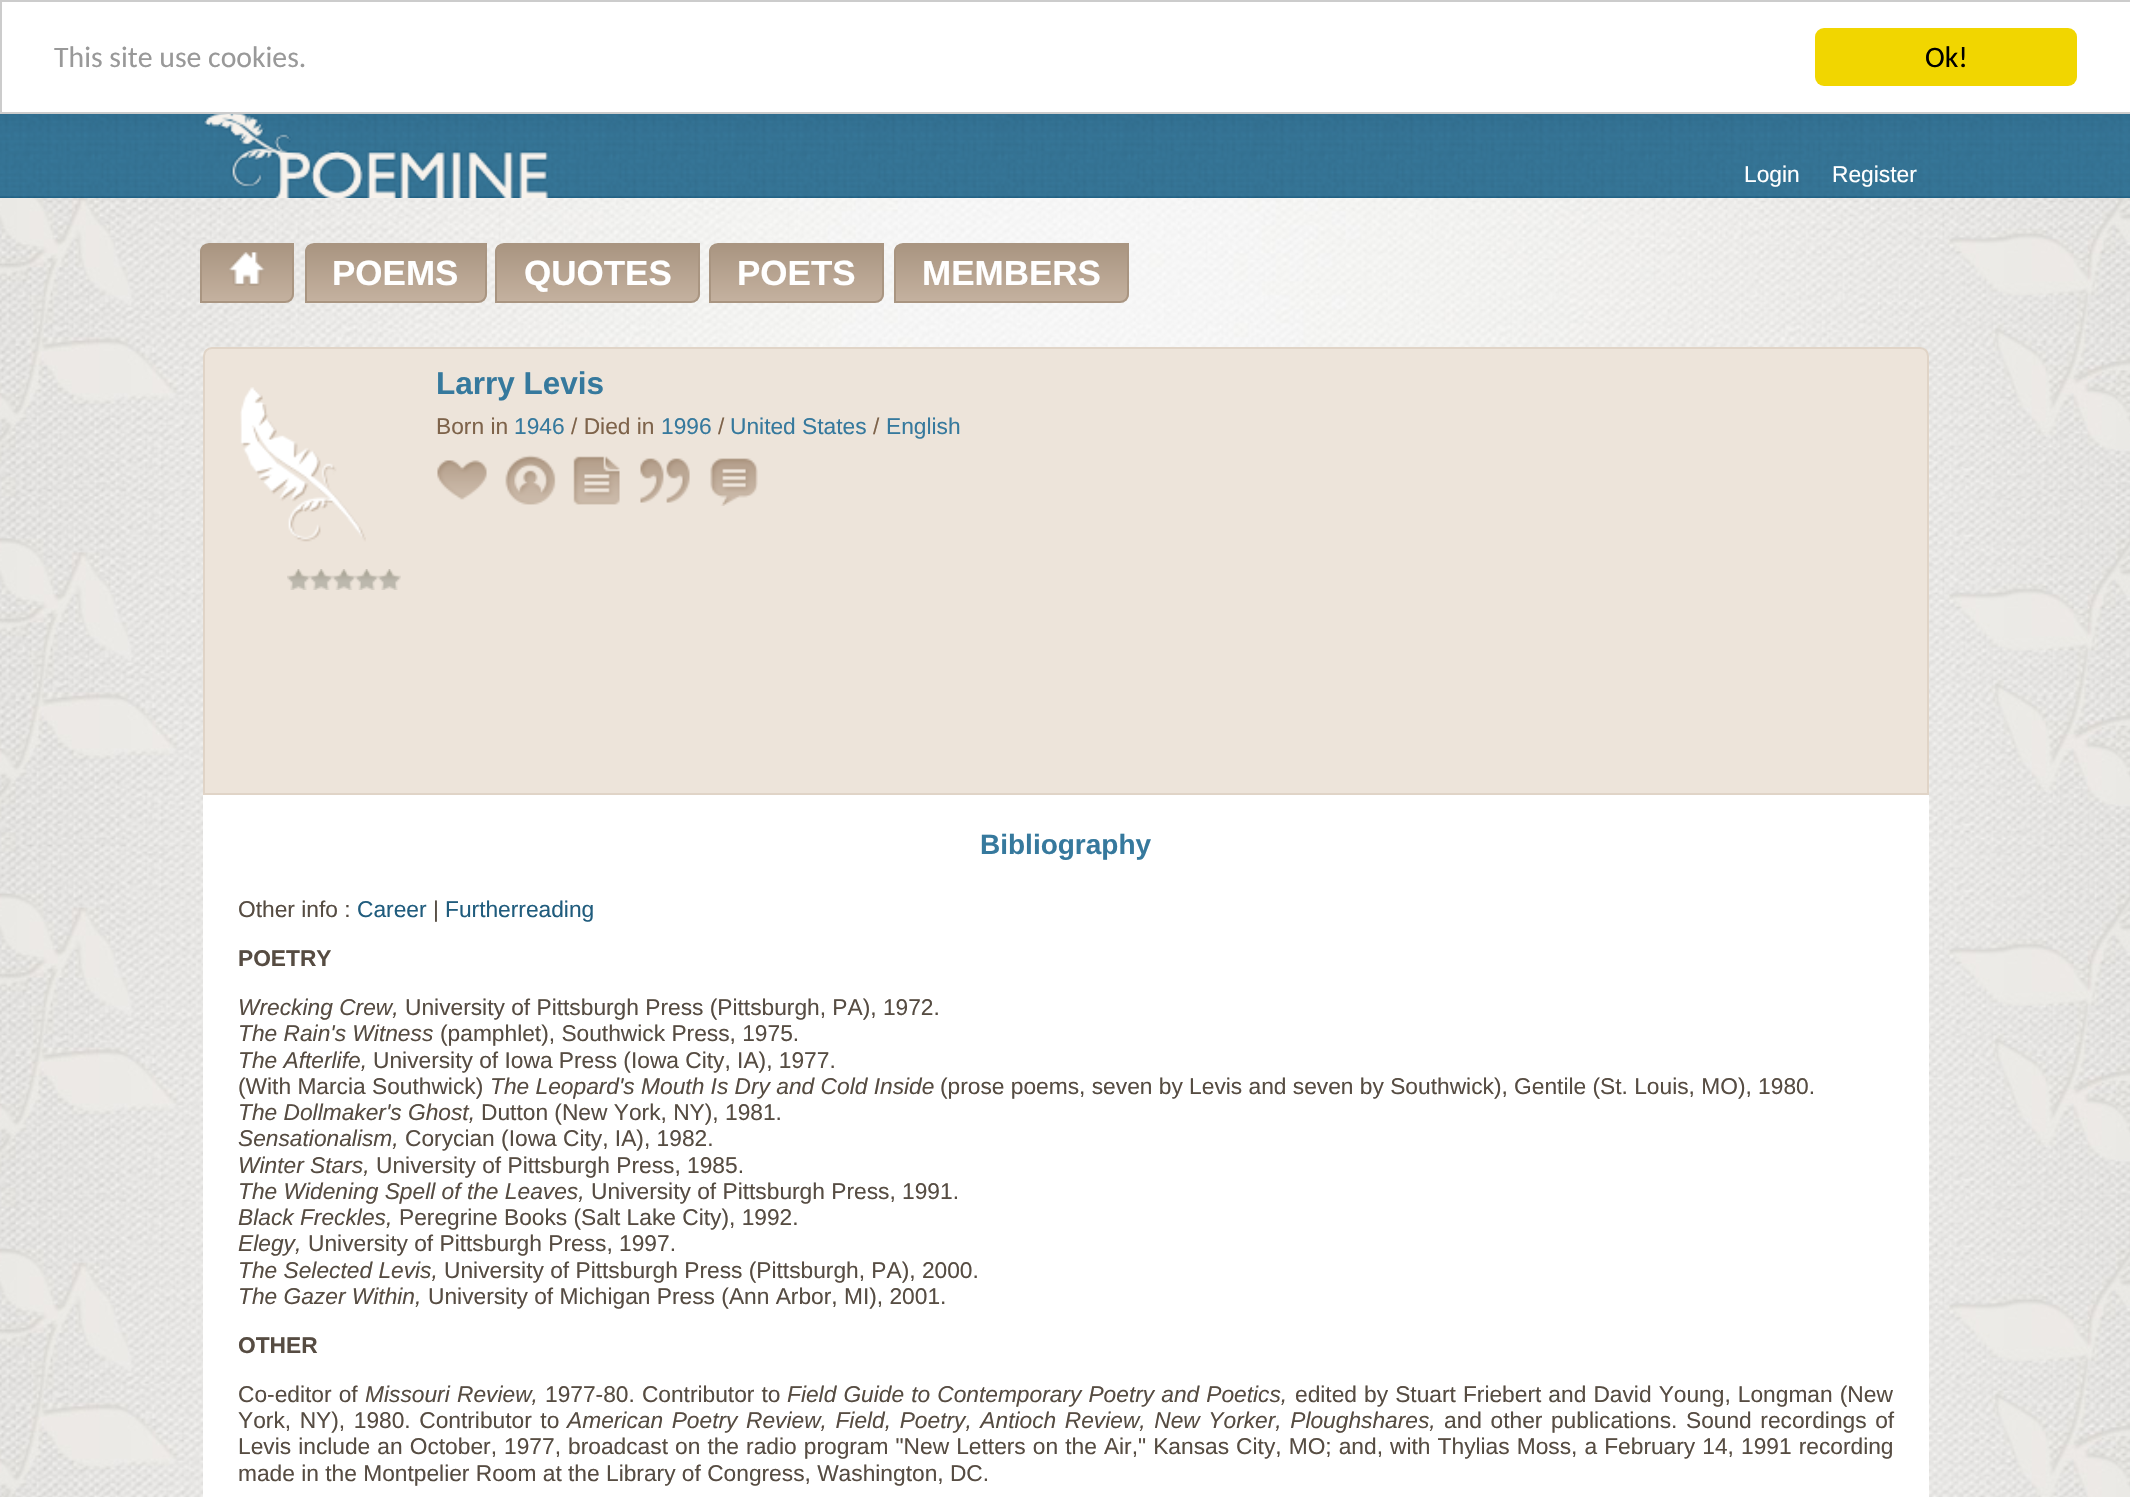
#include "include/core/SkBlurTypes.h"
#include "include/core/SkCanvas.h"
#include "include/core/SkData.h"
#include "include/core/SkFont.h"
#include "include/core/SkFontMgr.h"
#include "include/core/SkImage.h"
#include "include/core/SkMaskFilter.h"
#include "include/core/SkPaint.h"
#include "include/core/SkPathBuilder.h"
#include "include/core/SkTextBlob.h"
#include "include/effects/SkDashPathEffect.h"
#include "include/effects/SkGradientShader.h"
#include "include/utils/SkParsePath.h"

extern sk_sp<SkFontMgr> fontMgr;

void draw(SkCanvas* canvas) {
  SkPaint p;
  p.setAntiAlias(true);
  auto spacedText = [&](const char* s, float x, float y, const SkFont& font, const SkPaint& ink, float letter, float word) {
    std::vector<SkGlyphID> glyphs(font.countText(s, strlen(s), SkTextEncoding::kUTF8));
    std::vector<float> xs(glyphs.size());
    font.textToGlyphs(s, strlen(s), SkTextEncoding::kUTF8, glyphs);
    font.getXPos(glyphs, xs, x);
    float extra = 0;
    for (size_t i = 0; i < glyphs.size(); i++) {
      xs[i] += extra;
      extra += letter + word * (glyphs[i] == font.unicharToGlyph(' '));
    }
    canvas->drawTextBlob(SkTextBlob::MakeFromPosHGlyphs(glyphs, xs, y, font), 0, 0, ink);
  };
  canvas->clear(SK_ColorWHITE);
  canvas->drawImageRect(SkImages::DeferredFromEncodedData(SkData::MakeFromFileName("images/1.png")), SkRect::MakeLTRB(0, 1423, 2130, 1497), SkSamplingOptions());
  canvas->drawImageRect(SkImages::DeferredFromEncodedData(SkData::MakeFromFileName("images/2.png")), SkRect::MakeLTRB(0, 198, 2130, 1423), SkSamplingOptions());
  p.setStyle(SkPaint::kStroke_Style);
  p.setStrokeWidth(2);
  p.setColor(SkColorSetRGB(204, 204, 204));
  canvas->drawRect(SkRect::MakeLTRB(1, 1, 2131, 113), p);
  p.setStyle(SkPaint::kFill_Style);
  p.setColor(SkColorSetRGB(241, 214, 0));
  canvas->drawRoundRect(SkRect::MakeLTRB(1815, 28, 2077, 86), 9, 9, p);
  canvas->drawImageRect(SkImages::DeferredFromEncodedData(SkData::MakeFromFileName("images/3.png")), SkRect::MakeLTRB(0, 114, 2130, 198), SkSamplingOptions());
  canvas->drawImageRect(SkImages::DeferredFromEncodedData(SkData::MakeFromFileName("images/4.png")), SkRect::MakeLTRB(203, 114, 550, 198), SkSamplingOptions());
  canvas->save();
  canvas->clipPath(SkPathBuilder().moveTo(209, 243).lineTo(294, 243).lineTo(294, 294).cubicTo(294, 299, 290, 303, 285, 303).lineTo(200, 303).lineTo(200, 252).cubicTo(200, 247, 204, 243, 209, 243).close().detach(), true);
  {
    const SkColor colors[] = {SkColorSetRGB(169, 149, 129), SkColorSetRGB(196, 177, 159)};
    const float stops[] = {0, 1};
    const SkPoint ends[] = {{247, 245}, {247, 301}};
    p.setShader(SkGradientShader::MakeLinear(ends, colors, stops, 2, SkTileMode::kClamp));
    p.setAlpha(255);
  }
  canvas->drawRect(SkRect::MakeLTRB(200, 245, 294, 301), p);
  canvas->restore();
  p.setStyle(SkPaint::kStroke_Style);
  p.setShader(nullptr);
  p.setColor(SkColorSetRGB(169, 149, 129));
  canvas->drawPath(SkPathBuilder().moveTo(209, 244).lineTo(293, 244).lineTo(293, 294).cubicTo(293, 298.5f, 289.5f, 302, 285, 302).lineTo(201, 302).lineTo(201, 252).cubicTo(201, 247.5f, 204.5f, 244, 209, 244).close().detach(), p);
  canvas->drawImageRect(SkImages::DeferredFromEncodedData(SkData::MakeFromFileName("images/5.png")), SkRect::MakeLTRB(229, 252, 265, 286), SkSamplingOptions());
  canvas->save();
  canvas->clipPath(SkPathBuilder().moveTo(314, 243).lineTo(487, 243).lineTo(487, 294).cubicTo(487, 299, 483, 303, 478, 303).lineTo(305, 303).lineTo(305, 252).cubicTo(305, 247, 309, 243, 314, 243).close().detach(), true);
  p.setStyle(SkPaint::kFill_Style);
  {
    const SkColor colors[] = {SkColorSetRGB(169, 149, 129), SkColorSetRGB(196, 177, 159)};
    const float stops[] = {0, 1};
    const SkPoint ends[] = {{396, 245}, {396, 301}};
    p.setShader(SkGradientShader::MakeLinear(ends, colors, stops, 2, SkTileMode::kClamp));
    p.setAlpha(255);
  }
  canvas->drawRect(SkRect::MakeLTRB(305, 245, 487, 301), p);
  canvas->restore();
  p.setStyle(SkPaint::kStroke_Style);
  p.setShader(nullptr);
  p.setColor(SkColorSetRGB(169, 149, 129));
  canvas->drawPath(SkPathBuilder().moveTo(314, 244).lineTo(486, 244).lineTo(486, 294).cubicTo(486, 298.5f, 482.5f, 302, 478, 302).lineTo(306, 302).lineTo(306, 252).cubicTo(306, 247.5f, 309.5f, 244, 314, 244).close().detach(), p);
  canvas->save();
  canvas->clipPath(SkPathBuilder().moveTo(504, 243).lineTo(700, 243).lineTo(700, 294).cubicTo(700, 299, 696, 303, 691, 303).lineTo(495, 303).lineTo(495, 252).cubicTo(495, 247, 499, 243, 504, 243).close().detach(), true);
  p.setStyle(SkPaint::kFill_Style);
  {
    const SkColor colors[] = {SkColorSetRGB(169, 149, 129), SkColorSetRGB(196, 177, 159)};
    const float stops[] = {0, 1};
    const SkPoint ends[] = {{598, 245}, {598, 301}};
    p.setShader(SkGradientShader::MakeLinear(ends, colors, stops, 2, SkTileMode::kClamp));
    p.setAlpha(255);
  }
  canvas->drawRect(SkRect::MakeLTRB(495, 245, 700, 301), p);
  canvas->restore();
  p.setStyle(SkPaint::kStroke_Style);
  p.setShader(nullptr);
  p.setColor(SkColorSetRGB(169, 149, 129));
  canvas->drawPath(SkPathBuilder().moveTo(504, 244).lineTo(699, 244).lineTo(699, 294).cubicTo(699, 298.5f, 695.5f, 302, 691, 302).lineTo(496, 302).lineTo(496, 252).cubicTo(496, 247.5f, 499.5f, 244, 504, 244).close().detach(), p);
  canvas->save();
  canvas->clipPath(SkPathBuilder().moveTo(718, 243).lineTo(884, 243).lineTo(884, 294).cubicTo(884, 299, 880, 303, 875, 303).lineTo(709, 303).lineTo(709, 252).cubicTo(709, 247, 713, 243, 718, 243).close().detach(), true);
  p.setStyle(SkPaint::kFill_Style);
  {
    const SkColor colors[] = {SkColorSetRGB(169, 149, 129), SkColorSetRGB(196, 177, 159)};
    const float stops[] = {0, 1};
    const SkPoint ends[] = {{796, 245}, {796, 301}};
    p.setShader(SkGradientShader::MakeLinear(ends, colors, stops, 2, SkTileMode::kClamp));
    p.setAlpha(255);
  }
  canvas->drawRect(SkRect::MakeLTRB(709, 245, 884, 301), p);
  canvas->restore();
  p.setStyle(SkPaint::kStroke_Style);
  p.setShader(nullptr);
  p.setColor(SkColorSetRGB(169, 149, 129));
  canvas->drawPath(SkPathBuilder().moveTo(718, 244).lineTo(883, 244).lineTo(883, 294).cubicTo(883, 298.5f, 879.5f, 302, 875, 302).lineTo(710, 302).lineTo(710, 252).cubicTo(710, 247.5f, 713.5f, 244, 718, 244).close().detach(), p);
  canvas->save();
  canvas->clipPath(SkPathBuilder().moveTo(903, 243).lineTo(1129, 243).lineTo(1129, 294).cubicTo(1129, 299, 1125, 303, 1120, 303).lineTo(894, 303).lineTo(894, 252).cubicTo(894, 247, 898, 243, 903, 243).close().detach(), true);
  p.setStyle(SkPaint::kFill_Style);
  {
    const SkColor colors[] = {SkColorSetRGB(169, 149, 129), SkColorSetRGB(196, 177, 159)};
    const float stops[] = {0, 1};
    const SkPoint ends[] = {{1012, 245}, {1012, 301}};
    p.setShader(SkGradientShader::MakeLinear(ends, colors, stops, 2, SkTileMode::kClamp));
    p.setAlpha(255);
  }
  canvas->drawRect(SkRect::MakeLTRB(894, 245, 1129, 301), p);
  canvas->restore();
  p.setStyle(SkPaint::kStroke_Style);
  p.setShader(nullptr);
  p.setColor(SkColorSetRGB(169, 149, 129));
  canvas->drawPath(SkPathBuilder().moveTo(903, 244).lineTo(1128, 244).lineTo(1128, 294).cubicTo(1128, 298.5f, 1124.5f, 302, 1120, 302).lineTo(895, 302).lineTo(895, 252).cubicTo(895, 247.5f, 898.5f, 244, 903, 244).close().detach(), p);
  p.setStyle(SkPaint::kFill_Style);
  p.setColor(SkColorSetRGB(237, 228, 218));
  canvas->drawPath(SkPathBuilder().moveTo(212, 348).lineTo(1920, 348).cubicTo(1924.5f, 348, 1928, 351.5f, 1928, 356).lineTo(1928, 794).lineTo(204, 794).lineTo(204, 356).cubicTo(204, 351.5f, 207.5f, 348, 212, 348).close().detach(), p);
  p.setStyle(SkPaint::kStroke_Style);
  p.setColor(SkColorSetRGB(224, 212, 199));
  canvas->drawPath(SkPathBuilder().moveTo(212, 348).lineTo(1920, 348).cubicTo(1924.5f, 348, 1928, 351.5f, 1928, 356).lineTo(1928, 794).lineTo(204, 794).lineTo(204, 356).cubicTo(204, 351.5f, 207.5f, 348, 212, 348).close().detach(), p);
  canvas->drawImageRect(SkImages::DeferredFromEncodedData(SkData::MakeFromFileName("images/6.png")), SkRect::MakeLTRB(240, 387, 366, 542), SkSamplingOptions());
  canvas->drawImageRect(SkImages::DeferredFromEncodedData(SkData::MakeFromFileName("images/7.png")), SkRect::MakeLTRB(287, 569, 310, 590), SkSamplingOptions());
  canvas->drawImageRect(SkImages::DeferredFromEncodedData(SkData::MakeFromFileName("images/8.png")), SkRect::MakeLTRB(309, 569, 333, 590), SkSamplingOptions());
  canvas->drawImageRect(SkImages::DeferredFromEncodedData(SkData::MakeFromFileName("images/9.png")), SkRect::MakeLTRB(332, 569, 356, 590), SkSamplingOptions());
  canvas->drawImageRect(SkImages::DeferredFromEncodedData(SkData::MakeFromFileName("images/10.png")), SkRect::MakeLTRB(355, 569, 378, 590), SkSamplingOptions());
  canvas->drawImageRect(SkImages::DeferredFromEncodedData(SkData::MakeFromFileName("images/11.png")), SkRect::MakeLTRB(378, 569, 401, 590), SkSamplingOptions());
  canvas->drawImageRect(SkImages::DeferredFromEncodedData(SkData::MakeFromFileName("images/12.png")), SkRect::MakeLTRB(437, 460, 487, 500), SkSamplingOptions());
  canvas->drawImageRect(SkImages::DeferredFromEncodedData(SkData::MakeFromFileName("images/13.png")), SkRect::MakeLTRB(505, 455, 556, 505), SkSamplingOptions());
  canvas->drawImageRect(SkImages::DeferredFromEncodedData(SkData::MakeFromFileName("images/14.png")), SkRect::MakeLTRB(573, 456, 620, 505), SkSamplingOptions());
  canvas->drawImageRect(SkImages::DeferredFromEncodedData(SkData::MakeFromFileName("images/15.png")), SkRect::MakeLTRB(640, 458, 690, 503), SkSamplingOptions());
  canvas->drawImageRect(SkImages::DeferredFromEncodedData(SkData::MakeFromFileName("images/16.png")), SkRect::MakeLTRB(710, 458, 758, 506), SkSamplingOptions());
  p.setStyle(SkPaint::kFill_Style);
  p.setColor(SK_ColorWHITE);
  canvas->drawRect(SkRect::MakeLTRB(203, 795, 1929, 1497), p);
  SkFont font1(fontMgr->matchFamilyStyle("Carlito", SkFontStyle::Normal()), 29.75f);
  font1.setSubpixel(true);
  p.setColor(SkColorSetRGB(153, 153, 153));
  canvas->drawString("This site use cookies.", 54, 67, font1, p);
  p.setColor(SK_ColorBLACK);
  canvas->drawString("Ok!", 1925, 67, font1, p);
  SkFont font2(fontMgr->matchFamilyStyle("Liberation Sans", SkFontStyle::Normal()), 22.75f);
  font2.setSubpixel(true);
  p.setColor(SK_ColorWHITE);
  canvas->drawString("Login", 1744, 182, font2, p);
  canvas->drawString("Register", 1832, 182, font2, p);
  SkFont font3(fontMgr->matchFamilyStyle("Liberation Sans", SkFontStyle::Bold()), 35);
  font3.setSubpixel(true);
  canvas->drawString("POEMS", 332, 285, font3, p);
  canvas->drawString("QUOTES", 524, 285, font3, p);
  canvas->drawString("POETS", 737, 285, font3, p);
  canvas->drawString("MEMBERS", 922, 285, font3, p);
  SkFont font4(fontMgr->matchFamilyStyle("Liberation Sans", SkFontStyle::Bold()), 31.5f);
  font4.setSubpixel(true);
  p.setColor(SkColorSetRGB(54, 121, 157));
  canvas->drawString("Larry Levis", 436, 394, font4, p);
  p.setColor(SkColorSetRGB(126, 99, 74));
  canvas->drawString("Born in", 436, 434, font2, p);
  p.setColor(SkColorSetRGB(54, 121, 157));
  canvas->drawString("1946", 514, 434, font2, p);
  p.setColor(SkColorSetRGB(126, 99, 74));
  canvas->drawString("/ Died in", 571, 434, font2, p);
  p.setColor(SkColorSetRGB(54, 121, 157));
  canvas->drawString("1996", 661, 434, font2, p);
  p.setColor(SkColorSetRGB(126, 99, 74));
  canvas->drawString("/", 718, 434, font2, p);
  p.setColor(SkColorSetRGB(54, 121, 157));
  canvas->drawString("United States", 730, 434, font2, p);
  p.setColor(SkColorSetRGB(126, 99, 74));
  canvas->drawString("/", 873, 434, font2, p);
  p.setColor(SkColorSetRGB(54, 121, 157));
  canvas->drawString("English", 886, 434, font2, p);
  SkFont font5(fontMgr->matchFamilyStyle("Liberation Sans", SkFontStyle::Bold()), 28);
  font5.setSubpixel(true);
  canvas->drawString("Bibliography", 980, 854, font5, p);
  p.setColor(SkColorSetRGB(86, 76, 66));
  canvas->drawString("Other info :", 238, 917, font2, p);
  p.setColor(SkColorSetRGB(32, 92, 125));
  canvas->drawString("Career", 357, 917, font2, p);
  p.setColor(SkColorSetRGB(86, 76, 66));
  canvas->drawString("|", 433, 917, font2, p);
  p.setColor(SkColorSetRGB(32, 92, 125));
  canvas->drawString("Furtherreading", 445, 917, font2, p);
  SkFont font6(fontMgr->matchFamilyStyle("Liberation Sans", SkFontStyle::Bold()), 22.75f);
  font6.setSubpixel(true);
  p.setColor(SkColorSetRGB(86, 76, 66));
  canvas->drawString("POETRY", 238, 966, font6, p);
  SkFont font7(fontMgr->matchFamilyStyle("Liberation Sans", SkFontStyle::Italic()), 22.75f);
  font7.setSubpixel(true);
  canvas->drawString("Wrecking Crew,", 238, 1015, font7, p);
  canvas->drawString("University of Pittsburgh Press (Pittsburgh, PA), 1972.", 405, 1015, font2, p);
  canvas->drawString("The Rain's Witness", 238, 1041, font7, p);
  canvas->drawString("(pamphlet), Southwick Press, 1975.", 440, 1041, font2, p);
  canvas->drawString("The Afterlife,", 238, 1068, font7, p);
  canvas->drawString("University of Iowa Press (Iowa City, IA), 1977.", 373, 1068, font2, p);
  canvas->drawString("(With Marcia Southwick)", 238, 1094, font2, p);
  canvas->drawString("The Leopard's Mouth Is Dry and Cold Inside", 490, 1094, font7, p);
  canvas->drawString("(prose poems, seven by Levis and seven by Southwick), Gentile (St. Louis, MO), 1980.", 940, 1094, font2, p);
  canvas->drawString("The Dollmaker's Ghost,", 238, 1120, font7, p);
  canvas->drawString("Dutton (New York, NY), 1981.", 481, 1120, font2, p);
  canvas->drawString("Sensationalism,", 238, 1146, font7, p);
  canvas->drawString("Corycian (Iowa City, IA), 1982.", 405, 1146, font2, p);
  canvas->drawString("Winter Stars,", 238, 1173, font7, p);
  canvas->drawString("University of Pittsburgh Press, 1985.", 376, 1173, font2, p);
  canvas->drawString("The Widening Spell of the Leaves,", 238, 1199, font7, p);
  canvas->drawString("University of Pittsburgh Press, 1991.", 591, 1199, font2, p);
  canvas->drawString("Black Freckles,", 238, 1225, font7, p);
  canvas->drawString("Peregrine Books (Salt Lake City), 1992.", 399, 1225, font2, p);
  canvas->drawString("Elegy,", 238, 1251, font7, p);
  canvas->drawString("University of Pittsburgh Press, 1997.", 308, 1251, font2, p);
  canvas->drawString("The Selected Levis,", 238, 1278, font7, p);
  canvas->drawString("University of Pittsburgh Press (Pittsburgh, PA), 2000.", 444, 1278, font2, p);
  canvas->drawString("The Gazer Within,", 238, 1304, font7, p);
  canvas->drawString("University of Michigan Press (Ann Arbor, MI), 2001.", 428, 1304, font2, p);
  canvas->drawString("OTHER", 238, 1353, font6, p);
  spacedText("Co-editor of", 238, 1402, font2, p, 0, 0.75f);
  spacedText("Missouri Review,", 365, 1402, font7, p, 0, 1);
  spacedText("1977-80. Contributor to", 545, 1402, font2, p, 0, 0.75f);
  spacedText("Field Guide to Contemporary Poetry and Poetics,", 787, 1402, font7, p, 0, 0.75f);
  spacedText("edited by Stuart Friebert and David Young, Longman (New", 1295, 1402, font2, p, 0, 0.75f);
  spacedText("York, NY), 1980. Contributor to", 238, 1428, font2, p, 0, 2.25f);
  spacedText("American Poetry Review, Field, Poetry, Antioch Review, New Yorker, Ploughshares,", 567, 1428, font7, p, 0, 2.25f);
  spacedText("and other publications. Sound recordings of", 1444, 1428, font2, p, 0, 2.25f);
  spacedText("Levis include an October, 1977, broadcast on the radio program \"New Letters on the Air,\" Kansas City, MO; and, with Thylias Moss, a February 14, 1991 recording", 238, 1454, font2, p, 0, 0.75f);
  canvas->drawString("made in the Montpelier Room at the Library of Congress, Washington, DC.", 238, 1481, font2, p);
}
